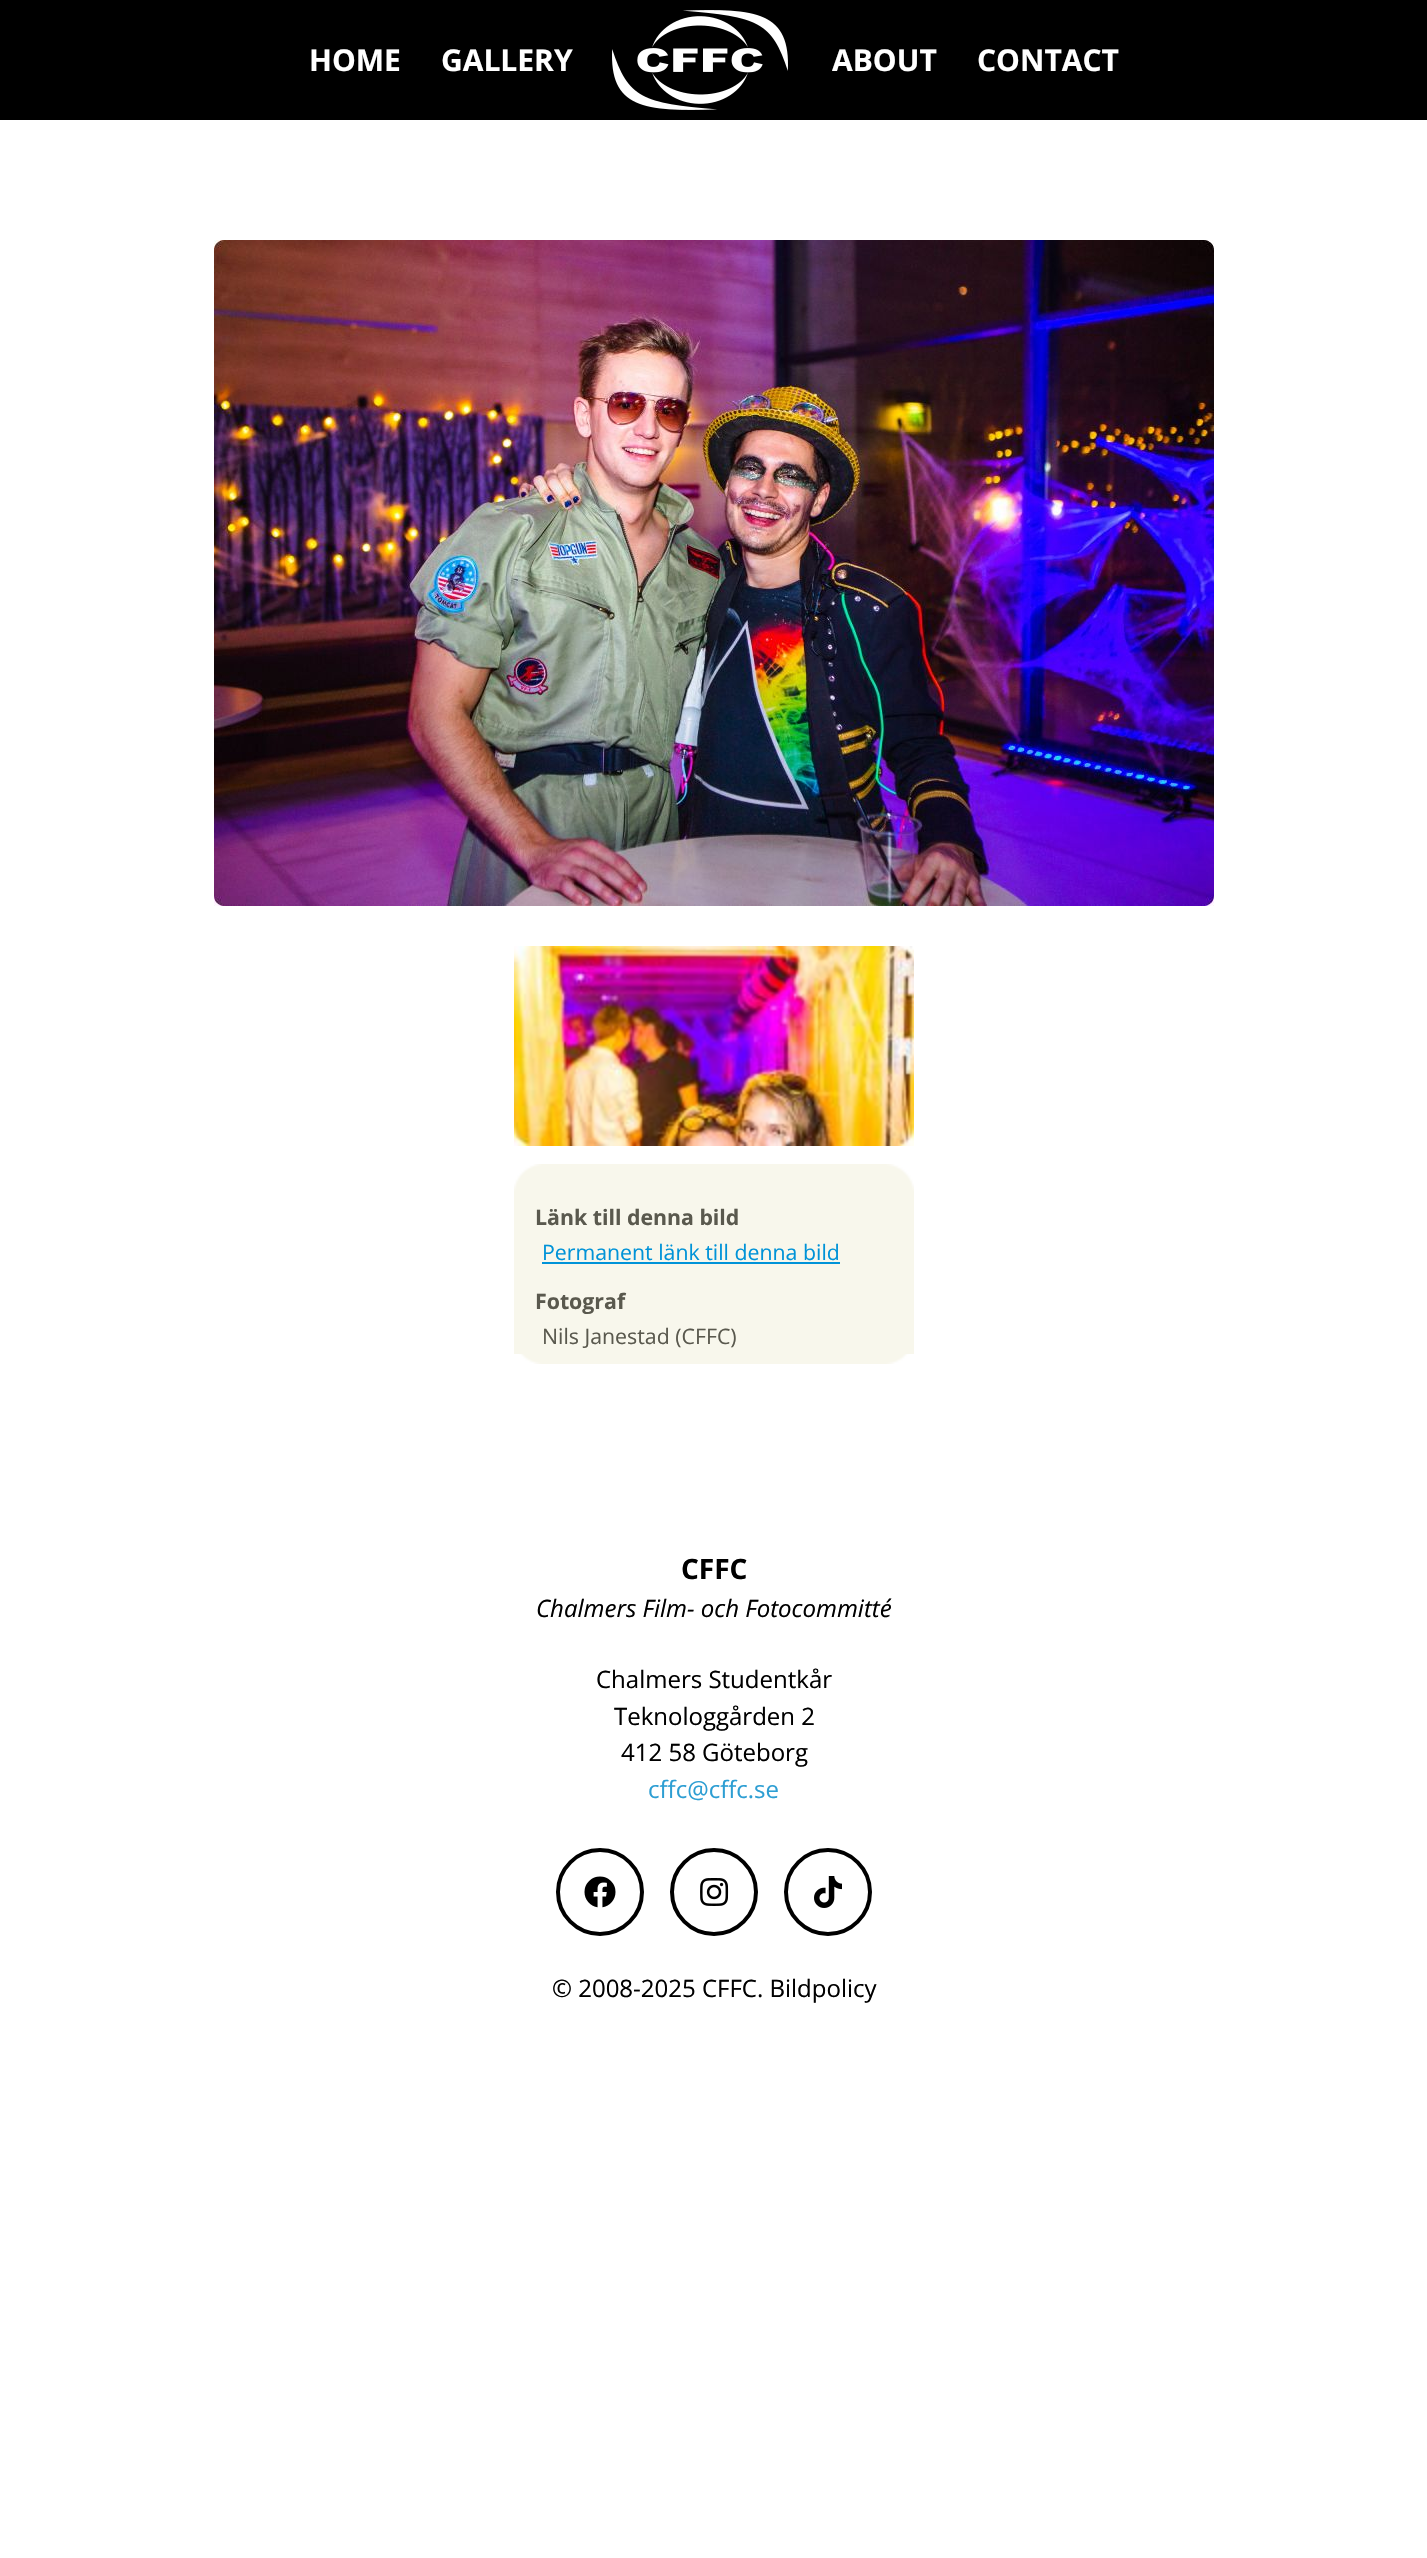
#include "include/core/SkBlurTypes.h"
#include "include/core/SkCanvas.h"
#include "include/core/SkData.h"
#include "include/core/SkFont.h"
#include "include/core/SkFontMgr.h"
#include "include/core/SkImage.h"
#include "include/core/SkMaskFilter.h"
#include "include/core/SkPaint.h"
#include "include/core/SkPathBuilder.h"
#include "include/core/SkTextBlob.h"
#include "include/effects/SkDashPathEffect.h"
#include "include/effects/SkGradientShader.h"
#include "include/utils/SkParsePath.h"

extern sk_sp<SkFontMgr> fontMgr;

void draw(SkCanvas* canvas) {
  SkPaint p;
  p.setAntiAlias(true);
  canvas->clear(SK_ColorWHITE);
  p.setColor(SK_ColorBLACK);
  canvas->drawRect(SkRect::MakeLTRB(0, 0, 1427, 120), p);
  canvas->drawImageRect(SkImages::DeferredFromEncodedData(SkData::MakeFromFileName("images/1.png")), SkRect::MakeLTRB(612, 10, 788, 110), SkSamplingOptions());
  canvas->drawImageRect(SkImages::DeferredFromEncodedData(SkData::MakeFromFileName("images/2.png")), SkRect::MakeLTRB(214, 240, 1214, 906), SkSamplingOptions());
  canvas->drawImageRect(SkImages::DeferredFromEncodedData(SkData::MakeFromFileName("images/3.png")), SkRect::MakeLTRB(514, 946, 914, 1146), SkSamplingOptions());
  canvas->drawImageRect(SkImages::DeferredFromEncodedData(SkData::MakeFromFileName("images/4.png")), SkRect::MakeLTRB(514, 1354, 914, 1364), SkSamplingOptions());
  canvas->drawImageRect(SkImages::DeferredFromEncodedData(SkData::MakeFromFileName("images/5.png")), SkRect::MakeLTRB(514, 1164, 914, 1354), SkSamplingOptions());
  p.setColor(SkColorSetRGB(0, 147, 216));
  canvas->drawRect(SkRect::MakeLTRB(542, 1262, 840, 1264), p);
  p.setStyle(SkPaint::kStroke_Style);
  p.setStrokeWidth(4);
  p.setColor(SK_ColorBLACK);
  canvas->drawCircle(600, 1892, 42, p);
  canvas->drawImageRect(SkImages::DeferredFromEncodedData(SkData::MakeFromFileName("images/6.png")), SkRect::MakeLTRB(584, 1876, 616, 1908), SkSamplingOptions());
  canvas->drawCircle(714, 1892, 42, p);
  canvas->drawImageRect(SkImages::DeferredFromEncodedData(SkData::MakeFromFileName("images/7.png")), SkRect::MakeLTRB(700, 1878, 729, 1906), SkSamplingOptions());
  canvas->drawCircle(828, 1892, 42, p);
  canvas->drawImageRect(SkImages::DeferredFromEncodedData(SkData::MakeFromFileName("images/8.png")), SkRect::MakeLTRB(814, 1876, 842, 1908), SkSamplingOptions());
  SkFont font1(fontMgr->matchFamilyStyle("Open Sans", SkFontStyle::Bold()), 30);
  font1.setSubpixel(true);
  p.setStyle(SkPaint::kFill_Style);
  p.setColor(SK_ColorWHITE);
  canvas->drawString("HOME", 309, 71, font1, p);
  canvas->drawString("GALLERY", 441, 71, font1, p);
  canvas->drawString("ABOUT", 832, 71, font1, p);
  canvas->drawString("CONTACT", 977, 71, font1, p);
  SkFont font2(fontMgr->matchFamilyStyle("Open Sans", SkFontStyle::Bold()), 21.3f);
  font2.setSubpixel(true);
  p.setColor(SkColorSetRGB(90, 89, 78));
  canvas->drawString("Länk till denna bild", 535, 1225, font2, p);
  SkFont font3(fontMgr->matchFamilyStyle("Open Sans", SkFontStyle::Normal()), 21.3f);
  font3.setSubpixel(true);
  p.setColor(SkColorSetRGB(0, 147, 216));
  canvas->drawString("Permanent länk till denna bild", 542, 1260, font3, p);
  p.setColor(SkColorSetRGB(90, 89, 78));
  canvas->drawString("Fotograf", 535, 1309, font2, p);
  canvas->drawString("Nils Janestad (CFFC)", 542, 1344, font3, p);
  SkFont font4(fontMgr->matchFamilyStyle("Open Sans", SkFontStyle::Bold()), 28);
  font4.setSubpixel(true);
  p.setColor(SK_ColorBLACK);
  canvas->drawString("CFFC", 681, 1579, font4, p);
  SkFont font5(fontMgr->matchFamilyStyle("Open Sans", SkFontStyle::Italic()), 24);
  font5.setSubpixel(true);
  canvas->drawString("Chalmers Film- och Fotocommitté", 536, 1617, font5, p);
  SkFont font6(fontMgr->matchFamilyStyle("Open Sans", SkFontStyle::Normal()), 24);
  font6.setSubpixel(true);
  canvas->drawString("Chalmers Studentkår", 596, 1688, font6, p);
  canvas->drawString("Teknologgården 2", 614, 1725, font6, p);
  canvas->drawString("412 58 Göteborg", 621, 1761, font6, p);
  p.setColor(SkColorSetRGB(45, 158, 211));
  canvas->drawString("cffc@cffc.se", 648, 1798, font6, p);
  p.setColor(SK_ColorBLACK);
  canvas->drawString("© 2008-2025 CFFC. Bildpolicy", 552, 1997, font6, p);
}
